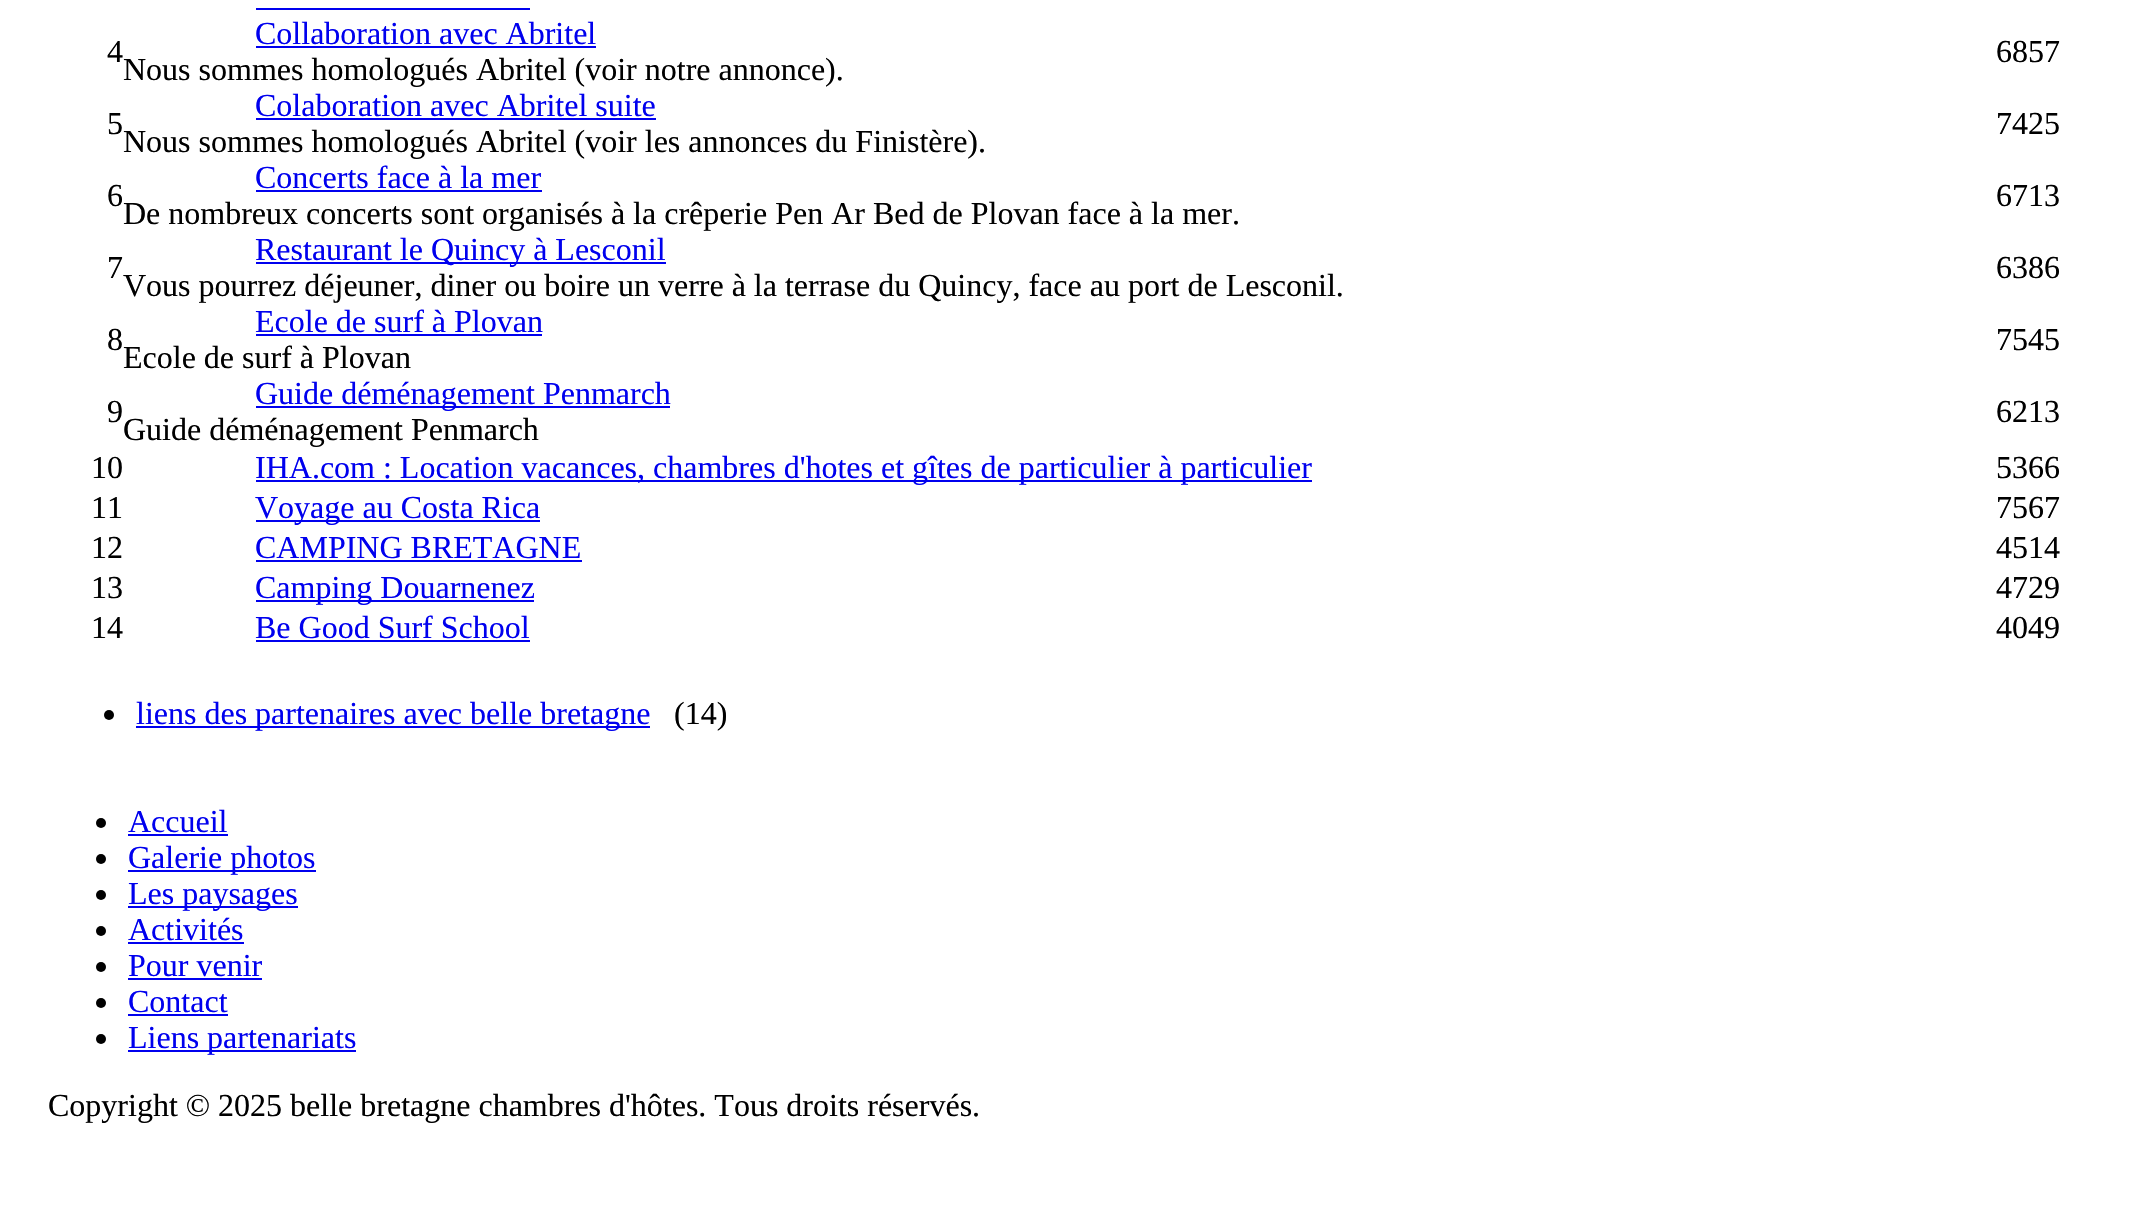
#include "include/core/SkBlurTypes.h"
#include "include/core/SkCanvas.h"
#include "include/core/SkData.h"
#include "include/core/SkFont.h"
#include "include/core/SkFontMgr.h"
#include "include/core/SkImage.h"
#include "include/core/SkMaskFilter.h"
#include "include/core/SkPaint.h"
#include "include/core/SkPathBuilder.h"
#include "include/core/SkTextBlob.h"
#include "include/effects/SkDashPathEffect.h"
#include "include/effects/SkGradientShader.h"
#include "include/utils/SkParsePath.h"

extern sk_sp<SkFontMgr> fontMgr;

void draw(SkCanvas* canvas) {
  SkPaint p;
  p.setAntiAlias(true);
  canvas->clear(SK_ColorWHITE);
  p.setColor(SkColorSetRGB(0, 0, 238));
  canvas->drawRect(SkRect::MakeLTRB(256, 8, 530, 10), p);
  canvas->drawRect(SkRect::MakeLTRB(256, 46, 596, 48), p);
  canvas->drawRect(SkRect::MakeLTRB(256, 118, 656, 120), p);
  canvas->drawRect(SkRect::MakeLTRB(256, 190, 542, 192), p);
  canvas->drawRect(SkRect::MakeLTRB(256, 262, 666, 264), p);
  canvas->drawRect(SkRect::MakeLTRB(256, 334, 542, 336), p);
  canvas->drawRect(SkRect::MakeLTRB(256, 406, 670, 408), p);
  canvas->drawRect(SkRect::MakeLTRB(256, 480, 1312, 482), p);
  canvas->drawRect(SkRect::MakeLTRB(256, 520, 540, 522), p);
  canvas->drawRect(SkRect::MakeLTRB(256, 560, 582, 562), p);
  canvas->drawRect(SkRect::MakeLTRB(256, 600, 534, 602), p);
  canvas->drawRect(SkRect::MakeLTRB(256, 640, 530, 642), p);
  p.setColor(SK_ColorBLACK);
  canvas->drawCircle(109, 715, 5, p);
  p.setColor(SkColorSetRGB(0, 0, 238));
  canvas->drawRect(SkRect::MakeLTRB(136, 726, 650, 728), p);
  p.setColor(SK_ColorBLACK);
  canvas->drawCircle(101, 823, 5, p);
  p.setColor(SkColorSetRGB(0, 0, 238));
  canvas->drawRect(SkRect::MakeLTRB(128, 834, 228, 836), p);
  p.setColor(SK_ColorBLACK);
  canvas->drawCircle(101, 859, 5, p);
  p.setColor(SkColorSetRGB(0, 0, 238));
  canvas->drawRect(SkRect::MakeLTRB(128, 870, 316, 872), p);
  p.setColor(SK_ColorBLACK);
  canvas->drawCircle(101, 895, 5, p);
  p.setColor(SkColorSetRGB(0, 0, 238));
  canvas->drawRect(SkRect::MakeLTRB(128, 906, 298, 908), p);
  p.setColor(SK_ColorBLACK);
  canvas->drawCircle(101, 931, 5, p);
  p.setColor(SkColorSetRGB(0, 0, 238));
  canvas->drawRect(SkRect::MakeLTRB(128, 942, 244, 944), p);
  p.setColor(SK_ColorBLACK);
  canvas->drawCircle(101, 967, 5, p);
  p.setColor(SkColorSetRGB(0, 0, 238));
  canvas->drawRect(SkRect::MakeLTRB(128, 978, 262, 980), p);
  p.setColor(SK_ColorBLACK);
  canvas->drawCircle(101, 1003, 5, p);
  p.setColor(SkColorSetRGB(0, 0, 238));
  canvas->drawRect(SkRect::MakeLTRB(128, 1014, 228, 1016), p);
  p.setColor(SK_ColorBLACK);
  canvas->drawCircle(101, 1039, 5, p);
  p.setColor(SkColorSetRGB(0, 0, 238));
  canvas->drawRect(SkRect::MakeLTRB(128, 1050, 356, 1052), p);
  SkFont font1(fontMgr->matchFamilyStyle("Liberation Serif", SkFontStyle::Normal()), 32);
  font1.setSubpixel(true);
  p.setColor(SK_ColorBLACK);
  canvas->drawString("4", 107, 62, font1, p);
  p.setColor(SkColorSetRGB(0, 0, 238));
  canvas->drawString("Collaboration avec Abritel", 255, 44, font1, p);
  p.setColor(SK_ColorBLACK);
  canvas->drawString("Nous sommes homologués Abritel (voir notre annonce).", 123, 80, font1, p);
  canvas->drawString("6857", 1996, 62, font1, p);
  canvas->drawString("5", 107, 134, font1, p);
  p.setColor(SkColorSetRGB(0, 0, 238));
  canvas->drawString("Colaboration avec Abritel suite", 255, 116, font1, p);
  p.setColor(SK_ColorBLACK);
  canvas->drawString("Nous sommes homologués Abritel (voir les annonces du Finistère).", 123, 152, font1, p);
  canvas->drawString("7425", 1996, 134, font1, p);
  canvas->drawString("6", 107, 206, font1, p);
  p.setColor(SkColorSetRGB(0, 0, 238));
  canvas->drawString("Concerts face à la mer", 255, 188, font1, p);
  p.setColor(SK_ColorBLACK);
  canvas->drawString("De nombreux concerts sont organisés à la crêperie Pen Ar Bed de Plovan face à la mer.", 123, 224, font1, p);
  canvas->drawString("6713", 1996, 206, font1, p);
  canvas->drawString("7", 107, 278, font1, p);
  p.setColor(SkColorSetRGB(0, 0, 238));
  canvas->drawString("Restaurant le Quincy à Lesconil", 255, 260, font1, p);
  p.setColor(SK_ColorBLACK);
  canvas->drawString("Vous pourrez déjeuner, diner ou boire un verre à la terrase du Quincy, face au port de Lesconil.", 123, 296, font1, p);
  canvas->drawString("6386", 1996, 278, font1, p);
  canvas->drawString("8", 107, 350, font1, p);
  p.setColor(SkColorSetRGB(0, 0, 238));
  canvas->drawString("Ecole de surf à Plovan", 255, 332, font1, p);
  p.setColor(SK_ColorBLACK);
  canvas->drawString("Ecole de surf à Plovan", 123, 368, font1, p);
  canvas->drawString("7545", 1996, 350, font1, p);
  canvas->drawString("9", 107, 422, font1, p);
  p.setColor(SkColorSetRGB(0, 0, 238));
  canvas->drawString("Guide déménagement Penmarch", 255, 404, font1, p);
  p.setColor(SK_ColorBLACK);
  canvas->drawString("Guide déménagement Penmarch", 123, 440, font1, p);
  canvas->drawString("6213", 1996, 422, font1, p);
  canvas->drawString("10", 91, 478, font1, p);
  p.setColor(SkColorSetRGB(0, 0, 238));
  canvas->drawString("IHA.com : Location vacances, chambres d'hotes et gîtes de particulier à particulier", 255, 478, font1, p);
  p.setColor(SK_ColorBLACK);
  canvas->drawString("5366", 1996, 478, font1, p);
  canvas->drawString("11", 91, 518, font1, p);
  p.setColor(SkColorSetRGB(0, 0, 238));
  canvas->drawString("Voyage au Costa Rica", 255, 518, font1, p);
  p.setColor(SK_ColorBLACK);
  canvas->drawString("7567", 1996, 518, font1, p);
  canvas->drawString("12", 91, 558, font1, p);
  p.setColor(SkColorSetRGB(0, 0, 238));
  canvas->drawString("CAMPING BRETAGNE", 255, 558, font1, p);
  p.setColor(SK_ColorBLACK);
  canvas->drawString("4514", 1996, 558, font1, p);
  canvas->drawString("13", 91, 598, font1, p);
  p.setColor(SkColorSetRGB(0, 0, 238));
  canvas->drawString("Camping Douarnenez", 255, 598, font1, p);
  p.setColor(SK_ColorBLACK);
  canvas->drawString("4729", 1996, 598, font1, p);
  canvas->drawString("14", 91, 638, font1, p);
  p.setColor(SkColorSetRGB(0, 0, 238));
  canvas->drawString("Be Good Surf School", 255, 638, font1, p);
  p.setColor(SK_ColorBLACK);
  canvas->drawString("4049", 1996, 638, font1, p);
  p.setColor(SkColorSetRGB(0, 0, 238));
  canvas->drawString("liens des partenaires avec belle bretagne", 136, 724, font1, p);
  p.setColor(SK_ColorBLACK);
  canvas->drawString("(14)", 674, 724, font1, p);
  p.setColor(SkColorSetRGB(0, 0, 238));
  canvas->drawString("Accueil", 128, 832, font1, p);
  canvas->drawString("Galerie photos", 128, 868, font1, p);
  canvas->drawString("Les paysages", 128, 904, font1, p);
  canvas->drawString("Activités", 128, 940, font1, p);
  canvas->drawString("Pour venir", 128, 976, font1, p);
  canvas->drawString("Contact", 128, 1012, font1, p);
  canvas->drawString("Liens partenariats", 128, 1048, font1, p);
  p.setColor(SK_ColorBLACK);
  canvas->drawString("Copyright © 2025 belle bretagne chambres d'hôtes. Tous droits réservés.", 48, 1116, font1, p);
}
